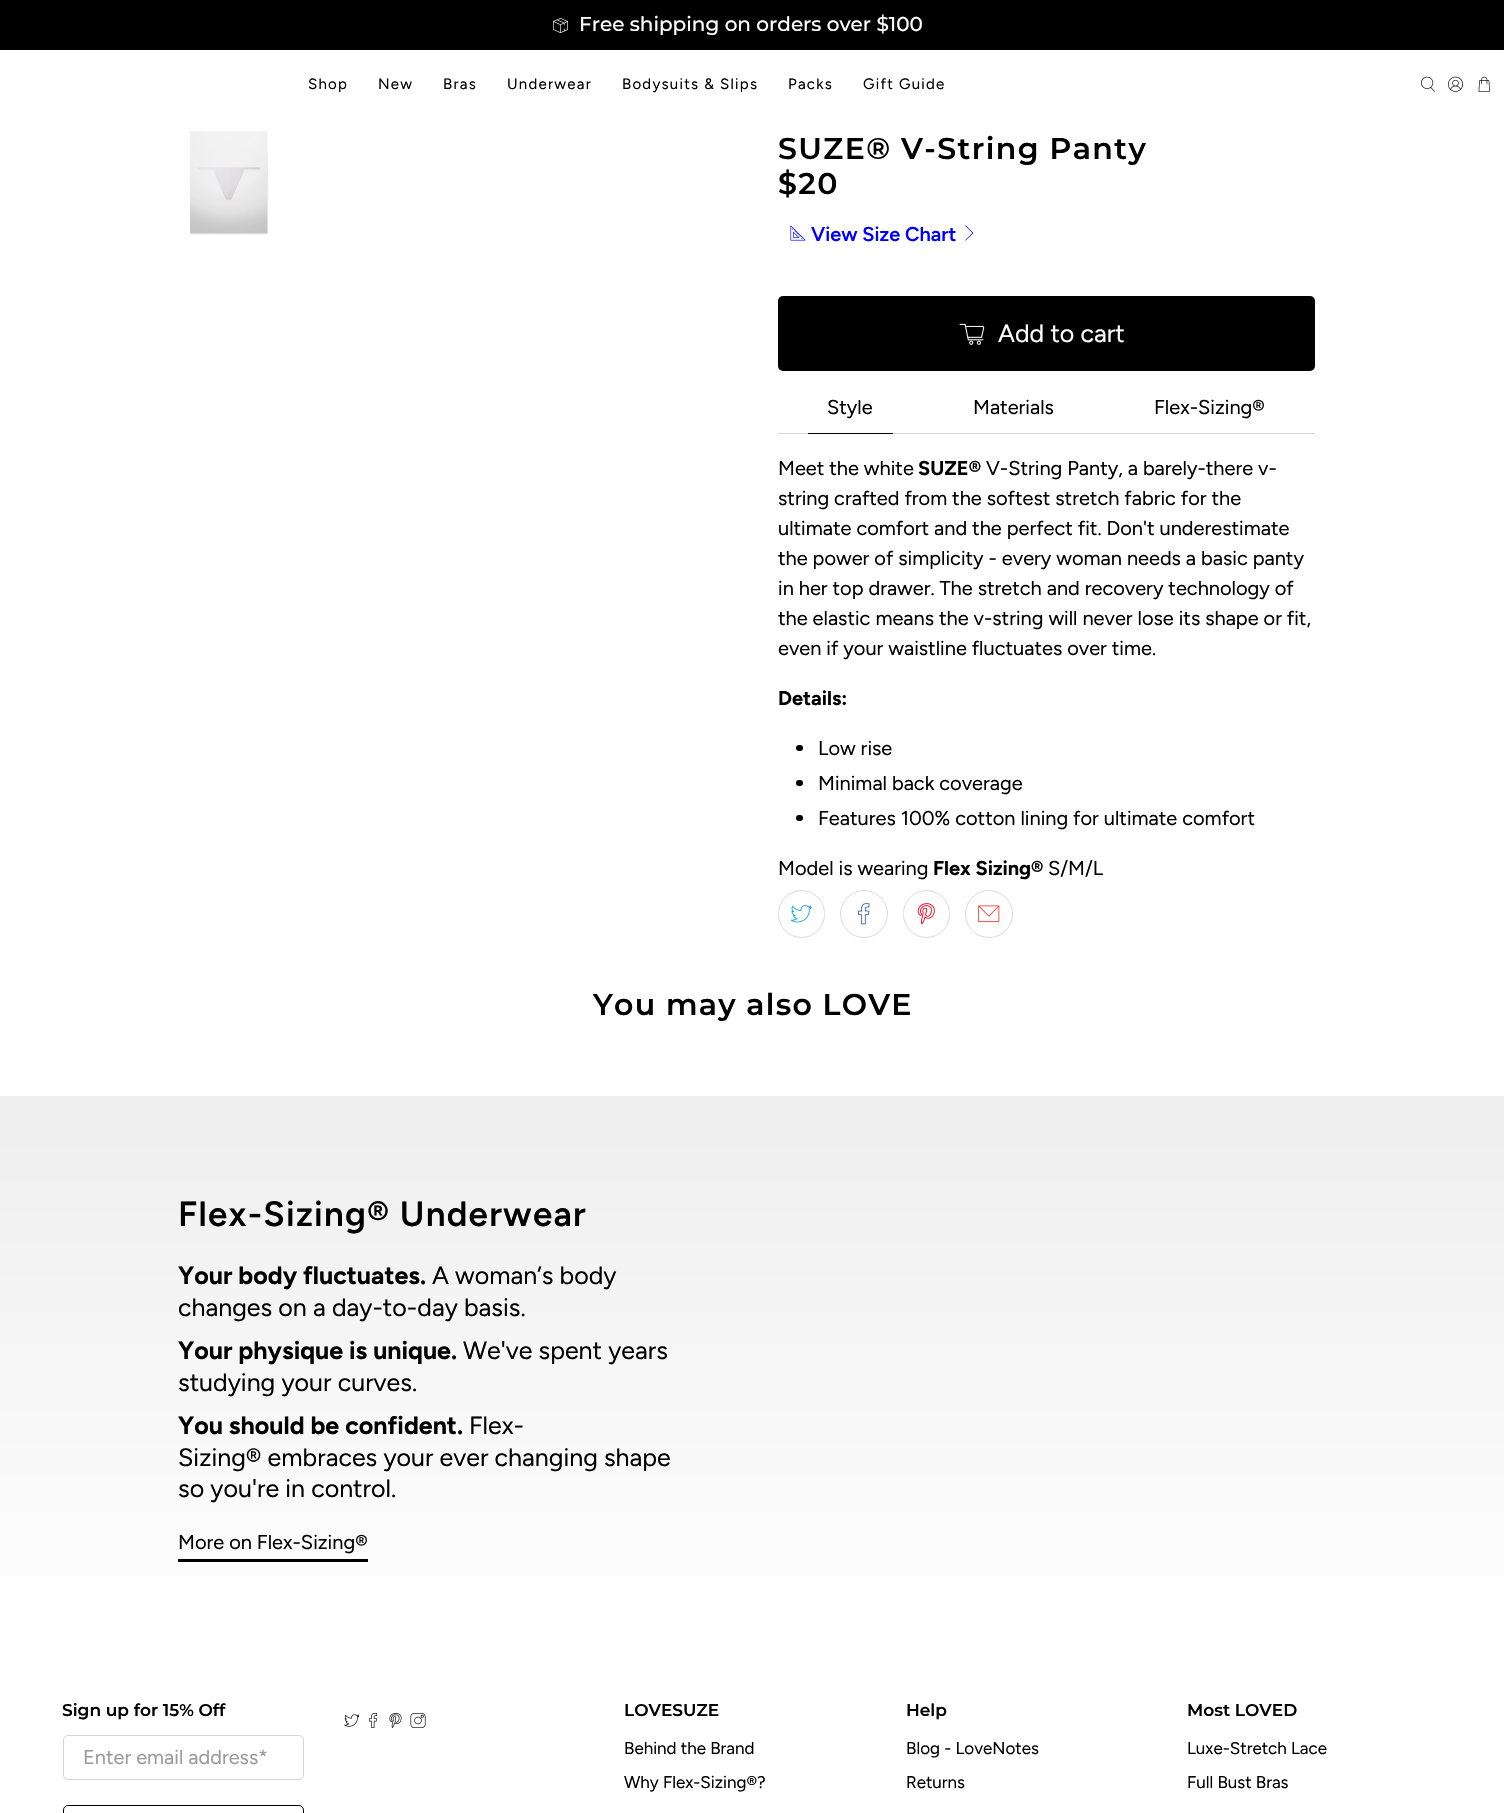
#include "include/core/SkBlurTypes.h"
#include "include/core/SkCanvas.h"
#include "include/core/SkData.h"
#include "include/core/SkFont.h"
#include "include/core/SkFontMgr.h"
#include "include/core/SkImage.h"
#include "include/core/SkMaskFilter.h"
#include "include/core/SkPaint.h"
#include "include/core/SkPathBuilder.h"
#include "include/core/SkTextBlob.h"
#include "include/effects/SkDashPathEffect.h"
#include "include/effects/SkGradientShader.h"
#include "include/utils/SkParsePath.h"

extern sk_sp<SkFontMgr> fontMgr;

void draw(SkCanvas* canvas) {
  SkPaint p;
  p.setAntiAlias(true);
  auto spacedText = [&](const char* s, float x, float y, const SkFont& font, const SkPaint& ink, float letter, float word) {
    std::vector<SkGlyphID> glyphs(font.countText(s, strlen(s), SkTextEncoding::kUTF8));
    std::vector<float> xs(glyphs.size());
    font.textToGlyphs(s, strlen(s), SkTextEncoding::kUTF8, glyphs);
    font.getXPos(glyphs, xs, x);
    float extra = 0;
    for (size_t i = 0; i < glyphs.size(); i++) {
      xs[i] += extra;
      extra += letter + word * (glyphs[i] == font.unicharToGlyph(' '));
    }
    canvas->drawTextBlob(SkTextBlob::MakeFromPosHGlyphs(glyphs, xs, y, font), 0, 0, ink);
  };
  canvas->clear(SK_ColorWHITE);
  p.setColor(SK_ColorBLACK);
  canvas->drawRect(SkRect::MakeLTRB(0, 0, 1504, 50), p);
  canvas->drawImageRect(SkImages::DeferredFromEncodedData(SkData::MakeFromFileName("images/1.png")), SkRect::MakeLTRB(553, 18, 568, 33), SkSamplingOptions());
  canvas->drawImageRect(SkImages::DeferredFromEncodedData(SkData::MakeFromFileName("images/2.png")), SkRect::MakeLTRB(1421, 76, 1435, 92), SkSamplingOptions());
  canvas->drawImageRect(SkImages::DeferredFromEncodedData(SkData::MakeFromFileName("images/3.png")), SkRect::MakeLTRB(1448, 76, 1463, 92), SkSamplingOptions());
  canvas->drawImageRect(SkImages::DeferredFromEncodedData(SkData::MakeFromFileName("images/4.png")), SkRect::MakeLTRB(1478, 76, 1490, 92), SkSamplingOptions());
  canvas->drawImageRect(SkImages::DeferredFromEncodedData(SkData::MakeFromFileName("images/5.png")), SkRect::MakeLTRB(190, 131, 268, 235), SkSamplingOptions());
  canvas->drawImageRect(SkImages::DeferredFromEncodedData(SkData::MakeFromFileName("images/6.png")), SkRect::MakeLTRB(267, 148, 268, 234), SkSamplingOptions());
  canvas->drawImageRect(SkImages::DeferredFromEncodedData(SkData::MakeFromFileName("images/7.png")), SkRect::MakeLTRB(790, 225, 806, 241), SkSamplingOptions());
  canvas->drawImageRect(SkImages::DeferredFromEncodedData(SkData::MakeFromFileName("images/8.png")), SkRect::MakeLTRB(965, 225, 974, 241), SkSamplingOptions());
  canvas->drawRoundRect(SkRect::MakeLTRB(778, 296, 1315, 371), 5, 5, p);
  canvas->drawImageRect(SkImages::DeferredFromEncodedData(SkData::MakeFromFileName("images/9.png")), SkRect::MakeLTRB(959, 323, 985, 345), SkSamplingOptions());
  p.setColor(SkColorSetRGB(212, 212, 212));
  canvas->drawRect(SkRect::MakeLTRB(778, 433, 1315, 434), p);
  p.setColor(SK_ColorBLACK);
  canvas->drawRect(SkRect::MakeLTRB(808, 433, 893, 434), p);
  canvas->drawRoundRect(SkRect::MakeLTRB(796, 745, 803, 751), 3, 3, p);
  canvas->drawRoundRect(SkRect::MakeLTRB(796, 780, 803, 786), 3, 3, p);
  canvas->drawRoundRect(SkRect::MakeLTRB(796, 815, 803, 821), 3, 3, p);
  p.setStyle(SkPaint::kStroke_Style);
  p.setStrokeWidth(1);
  p.setColor(SkColorSetRGB(219, 219, 219));
  canvas->drawRoundRect(SkRect::MakeLTRB(778.5f, 890.5f, 824.5f, 937.5f), 23, 23, p);
  canvas->drawImageRect(SkImages::DeferredFromEncodedData(SkData::MakeFromFileName("images/10.png")), SkRect::MakeLTRB(790, 905, 812, 923), SkSamplingOptions());
  canvas->drawCircle(864, 914, 23.5f, p);
  canvas->drawImageRect(SkImages::DeferredFromEncodedData(SkData::MakeFromFileName("images/11.png")), SkRect::MakeLTRB(858, 903, 870, 925), SkSamplingOptions());
  canvas->drawRoundRect(SkRect::MakeLTRB(903.5f, 890.5f, 949.5f, 937.5f), 23, 23, p);
  canvas->drawImageRect(SkImages::DeferredFromEncodedData(SkData::MakeFromFileName("images/12.png")), SkRect::MakeLTRB(917, 903, 935, 925), SkSamplingOptions());
  canvas->drawCircle(989, 914, 23.5f, p);
  canvas->drawImageRect(SkImages::DeferredFromEncodedData(SkData::MakeFromFileName("images/13.png")), SkRect::MakeLTRB(978, 905, 1000, 923), SkSamplingOptions());
  p.setStyle(SkPaint::kFill_Style);
  {
    const SkColor colors[] = {SK_ColorWHITE, SkColorSetRGB(238, 238, 238)};
    const float stops[] = {0, 1};
    const SkPoint ends[] = {{753, 1659}, {753, 1096}};
    p.setShader(SkGradientShader::MakeLinear(ends, colors, stops, 2, SkTileMode::kClamp));
    p.setAlpha(255);
  }
  canvas->drawRect(SkRect::MakeLTRB(0, 1096, 1504, 1576), p);
  p.setShader(nullptr);
  p.setColor(SK_ColorBLACK);
  canvas->drawRect(SkRect::MakeLTRB(178, 1559, 368, 1562), p);
  p.setStyle(SkPaint::kStroke_Style);
  p.setColor(SkColorSetRGB(212, 212, 212));
  canvas->drawRoundRect(SkRect::MakeLTRB(63.5f, 1735.5f, 303.5f, 1779.5f), 4.5f, 4.5f, p);
  p.setColor(SK_ColorBLACK);
  canvas->drawRoundRect(SkRect::MakeLTRB(63.5f, 1805.5f, 303.5f, 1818.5f), 4.5f, 4.5f, p);
  canvas->drawImageRect(SkImages::DeferredFromEncodedData(SkData::MakeFromFileName("images/14.png")), SkRect::MakeLTRB(344, 1714, 359, 1727), SkSamplingOptions());
  canvas->drawImageRect(SkImages::DeferredFromEncodedData(SkData::MakeFromFileName("images/15.png")), SkRect::MakeLTRB(368, 1713, 378, 1728), SkSamplingOptions());
  canvas->drawImageRect(SkImages::DeferredFromEncodedData(SkData::MakeFromFileName("images/16.png")), SkRect::MakeLTRB(389, 1713, 402, 1728), SkSamplingOptions());
  canvas->drawImageRect(SkImages::DeferredFromEncodedData(SkData::MakeFromFileName("images/17.png")), SkRect::MakeLTRB(410, 1713, 426, 1728), SkSamplingOptions());
  SkFont font1(fontMgr->matchFamilyStyle("Montserrat", SkFontStyle(500, SkFontStyle::kNormal_Width, SkFontStyle::kUpright_Slant)), 20);
  font1.setSubpixel(true);
  p.setStyle(SkPaint::kFill_Style);
  p.setColor(SK_ColorWHITE);
  canvas->drawString("Free shipping on orders over $100", 579, 31, font1, p);
  SkFont font2(fontMgr->matchFamilyStyle("Figtree", SkFontStyle::Normal()), 15);
  font2.setSubpixel(true);
  p.setColor(SK_ColorBLACK);
  spacedText("Shop", 308, 89, font2, p, 1.25f, 0);
  spacedText("New", 378, 89, font2, p, 1.25f, 0);
  spacedText("Bras", 443, 89, font2, p, 1.25f, 0);
  spacedText("Underwear", 507, 89, font2, p, 1.25f, 0);
  spacedText("Bodysuits & Slips", 622, 89, font2, p, 1.25f, 0);
  spacedText("Packs", 788, 89, font2, p, 1.25f, 0);
  spacedText("Gift Guide", 863, 89, font2, p, 1.25f, 0);
  SkFont font3(fontMgr->matchFamilyStyle("Montserrat", SkFontStyle(600, SkFontStyle::kNormal_Width, SkFontStyle::kUpright_Slant)), 30);
  font3.setSubpixel(true);
  spacedText("SUZE® V-String Panty", 778, 159, font3, p, 1.4f, 0);
  spacedText("$20", 778, 194, font3, p, 1.4f, 0);
  SkFont font4(fontMgr->matchFamilyStyle("Figtree", SkFontStyle(600, SkFontStyle::kNormal_Width, SkFontStyle::kUpright_Slant)), 20);
  font4.setSubpixel(true);
  p.setColor(SkColorSetRGB(0, 0, 255));
  canvas->drawString("View Size Chart", 811, 241, font4, p);
  SkFont font5(fontMgr->matchFamilyStyle("Figtree", SkFontStyle::Normal()), 25);
  font5.setSubpixel(true);
  p.setColor(SK_ColorWHITE);
  canvas->drawString("Add to cart", 998, 342, font5, p);
  SkFont font6(fontMgr->matchFamilyStyle("Figtree", SkFontStyle::Normal()), 20);
  font6.setSubpixel(true);
  p.setColor(SK_ColorBLACK);
  canvas->drawString("Style", 827, 414, font6, p);
  canvas->drawString("Materials", 973, 414, font6, p);
  canvas->drawString("Flex-Sizing®", 1154, 414, font6, p);
  canvas->drawString("Meet the white", 778, 475, font6, p);
  SkFont font7(fontMgr->matchFamilyStyle("Figtree", SkFontStyle::Bold()), 20);
  font7.setSubpixel(true);
  canvas->drawString("SUZE®", 918, 475, font7, p);
  canvas->drawString("V-String Panty, a barely-there v-", 986, 475, font6, p);
  canvas->drawString("string crafted from the softest stretch fabric for the", 778, 505, font6, p);
  canvas->drawString("ultimate comfort and the perfect fit. Don't underestimate", 778, 535, font6, p);
  canvas->drawString("the power of simplicity - every woman needs a basic panty", 778, 565, font6, p);
  canvas->drawString("in her top drawer. The stretch and recovery technology of", 778, 595, font6, p);
  canvas->drawString("the elastic means the v-string will never lose its shape or fit,", 778, 625, font6, p);
  canvas->drawString("even if your waistline fluctuates over time.", 778, 655, font6, p);
  canvas->drawString("Details:", 778, 705, font7, p);
  canvas->drawString("Low rise", 818, 755, font6, p);
  canvas->drawString("Minimal back coverage", 818, 790, font6, p);
  canvas->drawString("Features 100% cotton lining for ultimate comfort", 818, 825, font6, p);
  canvas->drawString("Model is wearing", 778, 875, font6, p);
  canvas->drawString("Flex Sizing®", 933, 875, font7, p);
  canvas->drawString("S/M/L", 1048, 875, font6, p);
  spacedText("You may also LOVE", 593, 1015, font3, p, 1.25f, 0);
  SkFont font8(fontMgr->matchFamilyStyle("Figtree", SkFontStyle(600, SkFontStyle::kNormal_Width, SkFontStyle::kUpright_Slant)), 35);
  font8.setSubpixel(true);
  spacedText("Flex-Sizing® Underwear", 178, 1226, font8, p, 1.25f, 0);
  SkFont font9(fontMgr->matchFamilyStyle("Figtree", SkFontStyle::Bold()), 25);
  font9.setSubpixel(true);
  canvas->drawString("Your body fluctuates.", 178, 1284, font9, p);
  canvas->drawString("A woman’s body", 432, 1284, font5, p);
  canvas->drawString("changes on a day-to-day basis.", 178, 1316, font5, p);
  canvas->drawString("Your physique is unique.", 178, 1359, font9, p);
  canvas->drawString("We've spent years", 463, 1359, font5, p);
  canvas->drawString("studying your curves.", 178, 1391, font5, p);
  canvas->drawString("You should be confident.", 178, 1434, font9, p);
  canvas->drawString("Flex-", 469, 1434, font5, p);
  canvas->drawString("Sizing® embraces your ever changing shape", 178, 1466, font5, p);
  canvas->drawString("so you're in control.", 178, 1497, font5, p);
  canvas->drawString("More on Flex-Sizing®", 178, 1549, font6, p);
  SkFont font10(fontMgr->matchFamilyStyle("Montserrat", SkFontStyle(600, SkFontStyle::kNormal_Width, SkFontStyle::kUpright_Slant)), 17);
  font10.setSubpixel(true);
  canvas->drawString("Sign up for 15% Off", 62, 1716, font10, p);
  p.setColor(SkColorSetRGB(155, 155, 155));
  canvas->drawString("Enter email address*", 83, 1764, font6, p);
  p.setColor(SK_ColorBLACK);
  canvas->drawString("LOVESUZE", 624, 1716, font10, p);
  SkFont font11(fontMgr->matchFamilyStyle("Figtree", SkFontStyle::Normal()), 17);
  font11.setSubpixel(true);
  canvas->drawString("Behind the Brand", 624, 1754, font11, p);
  canvas->drawString("Why Flex-Sizing®?", 624, 1788, font11, p);
  canvas->drawString("Help", 906, 1716, font10, p);
  canvas->drawString("Blog - LoveNotes", 906, 1754, font11, p);
  canvas->drawString("Returns", 906, 1788, font11, p);
  canvas->drawString("Most LOVED", 1187, 1716, font10, p);
  canvas->drawString("Luxe-Stretch Lace", 1187, 1754, font11, p);
  canvas->drawString("Full Bust Bras", 1187, 1788, font11, p);
}
